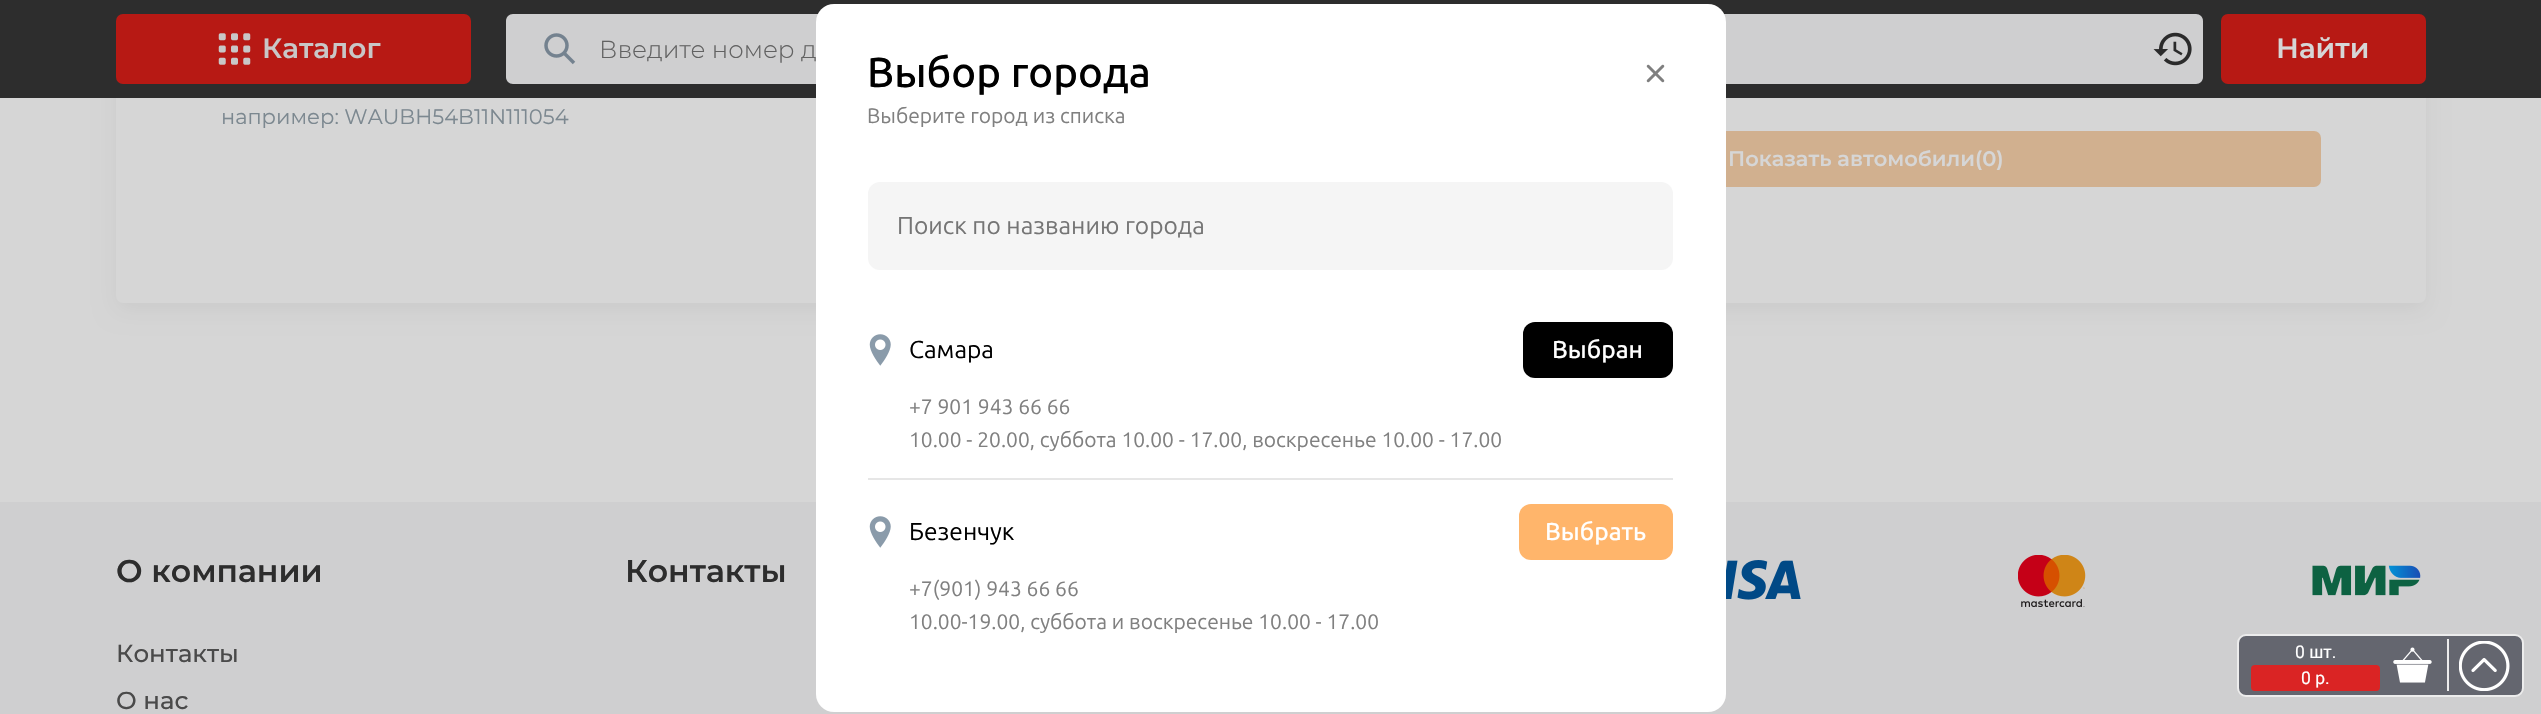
#include "include/core/SkBlurTypes.h"
#include "include/core/SkCanvas.h"
#include "include/core/SkData.h"
#include "include/core/SkFont.h"
#include "include/core/SkFontMgr.h"
#include "include/core/SkImage.h"
#include "include/core/SkMaskFilter.h"
#include "include/core/SkPaint.h"
#include "include/core/SkPathBuilder.h"
#include "include/core/SkTextBlob.h"
#include "include/effects/SkDashPathEffect.h"
#include "include/effects/SkGradientShader.h"
#include "include/utils/SkParsePath.h"

extern sk_sp<SkFontMgr> fontMgr;

void draw(SkCanvas* canvas) {
  SkPaint p;
  p.setAntiAlias(true);
  canvas->clear(SkColorSetRGB(214, 214, 214));
  p.setColor(SkColorSetARGB(13, 0, 0, 0));
  p.setMaskFilter(SkMaskFilter::MakeBlur(kNormal_SkBlurStyle, 10.5f));
  canvas->drawRoundRect(SkRect::MakeLTRB(116, -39, 2426, 310), 7, 7, p);
  p.setMaskFilter(nullptr);
  p.setColor(SkColorSetRGB(214, 214, 214));
  canvas->drawRoundRect(SkRect::MakeLTRB(116, -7, 2426, 303), 7, 7, p);
  p.setColor(SkColorSetRGB(45, 45, 45));
  canvas->drawRect(SkRect::MakeLTRB(0, 0, 2541, 98), p);
  p.setColor(SkColorSetRGB(183, 25, 20));
  canvas->drawRoundRect(SkRect::MakeLTRB(116, 14, 471, 84), 7, 7, p);
  canvas->drawImageRect(SkImages::DeferredFromEncodedData(SkData::MakeFromFileName("images/1.png")), SkRect::MakeLTRB(218, 33, 251, 65), SkSamplingOptions());
  p.setColor(SkColorSetRGB(207, 207, 208));
  canvas->drawPath(SkPathBuilder().moveTo(513, 14).lineTo(2144, 14).lineTo(2144, 84).lineTo(513, 84).cubicTo(509, 84, 506, 81, 506, 77).lineTo(506, 21).cubicTo(506, 17, 509, 14, 513, 14).close().detach(), p);
  canvas->drawImageRect(SkImages::DeferredFromEncodedData(SkData::MakeFromFileName("images/2.png")), SkRect::MakeLTRB(544, 33, 576, 65), SkSamplingOptions());
  canvas->drawPath(SkPathBuilder().moveTo(2144, 14).lineTo(2196, 14).cubicTo(2200, 14, 2203, 17, 2203, 21).lineTo(2203, 77).cubicTo(2203, 81, 2200, 84, 2196, 84).lineTo(2144, 84).close().detach(), p);
  canvas->drawImageRect(SkImages::DeferredFromEncodedData(SkData::MakeFromFileName("images/3.png")), SkRect::MakeLTRB(2153, 32, 2192, 66), SkSamplingOptions());
  p.setColor(SkColorSetRGB(183, 25, 20));
  canvas->drawRoundRect(SkRect::MakeLTRB(2221, 14, 2426, 84), 7, 7, p);
  p.setColor(SkColorSetRGB(209, 176, 143));
  canvas->drawRoundRect(SkRect::MakeLTRB(1411, 131, 2321, 187), 7, 7, p);
  p.setColor(SkColorSetRGB(207, 207, 208));
  canvas->drawRect(SkRect::MakeLTRB(0, 502, 2541, 714), p);
  canvas->drawImageRect(SkImages::DeferredFromEncodedData(SkData::MakeFromFileName("images/4.png")), SkRect::MakeLTRB(1726, 560, 1801, 600), SkSamplingOptions());
  canvas->drawImageRect(SkImages::DeferredFromEncodedData(SkData::MakeFromFileName("images/5.png")), SkRect::MakeLTRB(2018, 555, 2086, 607), SkSamplingOptions());
  canvas->drawImageRect(SkImages::DeferredFromEncodedData(SkData::MakeFromFileName("images/6.png")), SkRect::MakeLTRB(2312, 565, 2421, 596), SkSamplingOptions());
  p.setColor(SK_ColorWHITE);
  canvas->drawRoundRect(SkRect::MakeLTRB(816, 4, 1726, 712), 18, 18, p);
  canvas->drawImageRect(SkImages::DeferredFromEncodedData(SkData::MakeFromFileName("images/7.png")), SkRect::MakeLTRB(1646, 64, 1665, 83), SkSamplingOptions());
  p.setColor(SkColorSetRGB(245, 245, 245));
  canvas->drawRoundRect(SkRect::MakeLTRB(868, 182, 1673, 270), 12, 12, p);
  p.setColor(SkColorSetRGB(230, 230, 230));
  canvas->drawRect(SkRect::MakeLTRB(868, 478, 1673, 480), p);
  canvas->drawImageRect(SkImages::DeferredFromEncodedData(SkData::MakeFromFileName("images/8.png")), SkRect::MakeLTRB(869, 334, 891, 366), SkSamplingOptions());
  p.setColor(SK_ColorBLACK);
  canvas->drawRoundRect(SkRect::MakeLTRB(1523, 322, 1673, 378), 12, 12, p);
  canvas->drawImageRect(SkImages::DeferredFromEncodedData(SkData::MakeFromFileName("images/8.png")), SkRect::MakeLTRB(869, 516, 891, 548), SkSamplingOptions());
  p.setColor(SkColorSetRGB(255, 181, 107));
  canvas->drawRoundRect(SkRect::MakeLTRB(1519, 504, 1673, 560), 12, 12, p);
  p.setColor(SkColorSetRGB(100, 102, 111));
  canvas->drawRoundRect(SkRect::MakeLTRB(2238, 635, 2523, 696), 8, 8, p);
  p.setStyle(SkPaint::kStroke_Style);
  p.setStrokeWidth(2);
  p.setColor(SkColorSetRGB(236, 236, 236));
  canvas->drawRoundRect(SkRect::MakeLTRB(2238, 635, 2523, 696), 8, 8, p);
  canvas->drawImageRect(SkImages::DeferredFromEncodedData(SkData::MakeFromFileName("images/9.png")), SkRect::MakeLTRB(2393, 647, 2432, 683), SkSamplingOptions());
  p.setStyle(SkPaint::kFill_Style);
  p.setColor(SkColorSetRGB(218, 36, 36));
  canvas->drawRoundRect(SkRect::MakeLTRB(2251, 665, 2380, 691), 4, 4, p);
  p.setColor(SkColorSetRGB(236, 236, 236));
  canvas->drawRect(SkRect::MakeLTRB(2447, 639, 2449, 691), p);
  canvas->drawImageRect(SkImages::DeferredFromEncodedData(SkData::MakeFromFileName("images/10.png")), SkRect::MakeLTRB(2459, 641, 2510, 691), SkSamplingOptions());
  SkFont font1(fontMgr->matchFamilyStyle("Montserrat", SkFontStyle(600, SkFontStyle::kNormal_Width, SkFontStyle::kUpright_Slant)), 28);
  font1.setSubpixel(true);
  p.setColor(SkColorSetRGB(201, 199, 199));
  canvas->drawString("Каталог", 262, 58, font1, p);
  SkFont font2(fontMgr->matchFamilyStyle("Montserrat", SkFontStyle(300, SkFontStyle::kNormal_Width, SkFontStyle::kUpright_Slant)), 24.5f);
  font2.setSubpixel(true);
  p.setColor(SkColorSetRGB(98, 98, 98));
  canvas->drawString("Введите номер д", 599, 58, font2, p);
  p.setColor(SkColorSetRGB(214, 214, 214));
  canvas->drawString("Найти", 2276, 58, font1, p);
  SkFont font3(fontMgr->matchFamilyStyle("Montserrat", SkFontStyle::Normal()), 21);
  font3.setSubpixel(true);
  p.setColor(SkColorSetRGB(124, 136, 144));
  canvas->drawString("например: WAUBH54B11N111054", 221, 124, font3, p);
  SkFont font4(fontMgr->matchFamilyStyle("Montserrat", SkFontStyle(600, SkFontStyle::kNormal_Width, SkFontStyle::kUpright_Slant)), 21);
  font4.setSubpixel(true);
  p.setColor(SkColorSetRGB(214, 214, 214));
  canvas->drawString("Показать автомобили(0)", 1728, 166, font4, p);
  SkFont font5(fontMgr->matchFamilyStyle("Montserrat", SkFontStyle(600, SkFontStyle::kNormal_Width, SkFontStyle::kUpright_Slant)), 31.5f);
  font5.setSubpixel(true);
  p.setColor(SkColorSetRGB(45, 45, 45));
  canvas->drawString("О компании", 116, 582, font5, p);
  SkFont font6(fontMgr->matchFamilyStyle("Montserrat", SkFontStyle(500, SkFontStyle::kNormal_Width, SkFontStyle::kUpright_Slant)), 24.5f);
  font6.setSubpixel(true);
  p.setColor(SkColorSetRGB(74, 74, 74));
  canvas->drawString("Контакты", 116, 662, font6, p);
  canvas->drawString("О нас", 116, 709, font6, p);
  p.setColor(SkColorSetRGB(45, 45, 45));
  canvas->drawString("Контакты", 625, 582, font5, p);
  SkFont font7(fontMgr->matchFamilyStyle("Ubuntu", SkFontStyle(500, SkFontStyle::kNormal_Width, SkFontStyle::kUpright_Slant)), 42);
  font7.setSubpixel(true);
  p.setColor(SK_ColorBLACK);
  canvas->drawString("Выбор города", 867, 87, font7, p);
  SkFont font8(fontMgr->matchFamilyStyle("Ubuntu", SkFontStyle::Normal()), 21);
  font8.setSubpixel(true);
  p.setColor(SkColorSetRGB(128, 128, 128));
  canvas->drawString("Выберите город из списка", 867, 123, font8, p);
  SkFont font9(fontMgr->matchFamilyStyle("Ubuntu", SkFontStyle::Normal()), 24.5f);
  font9.setSubpixel(true);
  p.setColor(SkColorSetRGB(117, 117, 117));
  canvas->drawString("Поиск по названию города", 897, 234, font9, p);
  p.setColor(SK_ColorBLACK);
  canvas->drawString("Самара", 909, 358, font9, p);
  p.setColor(SkColorSetRGB(128, 128, 128));
  canvas->drawString("+7 901 943 66 66", 909, 414, font8, p);
  canvas->drawString("10.00 - 20.00, суббота 10.00 - 17.00, воскресенье 10.00 - 17.00", 909, 447, font8, p);
  SkFont font10(fontMgr->matchFamilyStyle("Ubuntu", SkFontStyle(500, SkFontStyle::kNormal_Width, SkFontStyle::kUpright_Slant)), 24.5f);
  font10.setSubpixel(true);
  p.setColor(SK_ColorWHITE);
  canvas->drawString("Выбран", 1552, 358, font10, p);
  p.setColor(SK_ColorBLACK);
  canvas->drawString("Безенчук", 909, 540, font9, p);
  p.setColor(SkColorSetRGB(128, 128, 128));
  canvas->drawString("+7(901) 943 66 66", 909, 596, font8, p);
  canvas->drawString("10.00-19.00, суббота и воскресенье 10.00 - 17.00", 909, 629, font8, p);
  p.setColor(SK_ColorWHITE);
  canvas->drawString("Выбрать", 1545, 540, font10, p);
  SkFont font11(fontMgr->matchFamilyStyle("Roboto", SkFontStyle::Normal()), 17.5f);
  font11.setSubpixel(true);
  canvas->drawString("0 шт.", 2295, 658, font11, p);
  canvas->drawString("0 р.", 2301, 684, font11, p);
}
